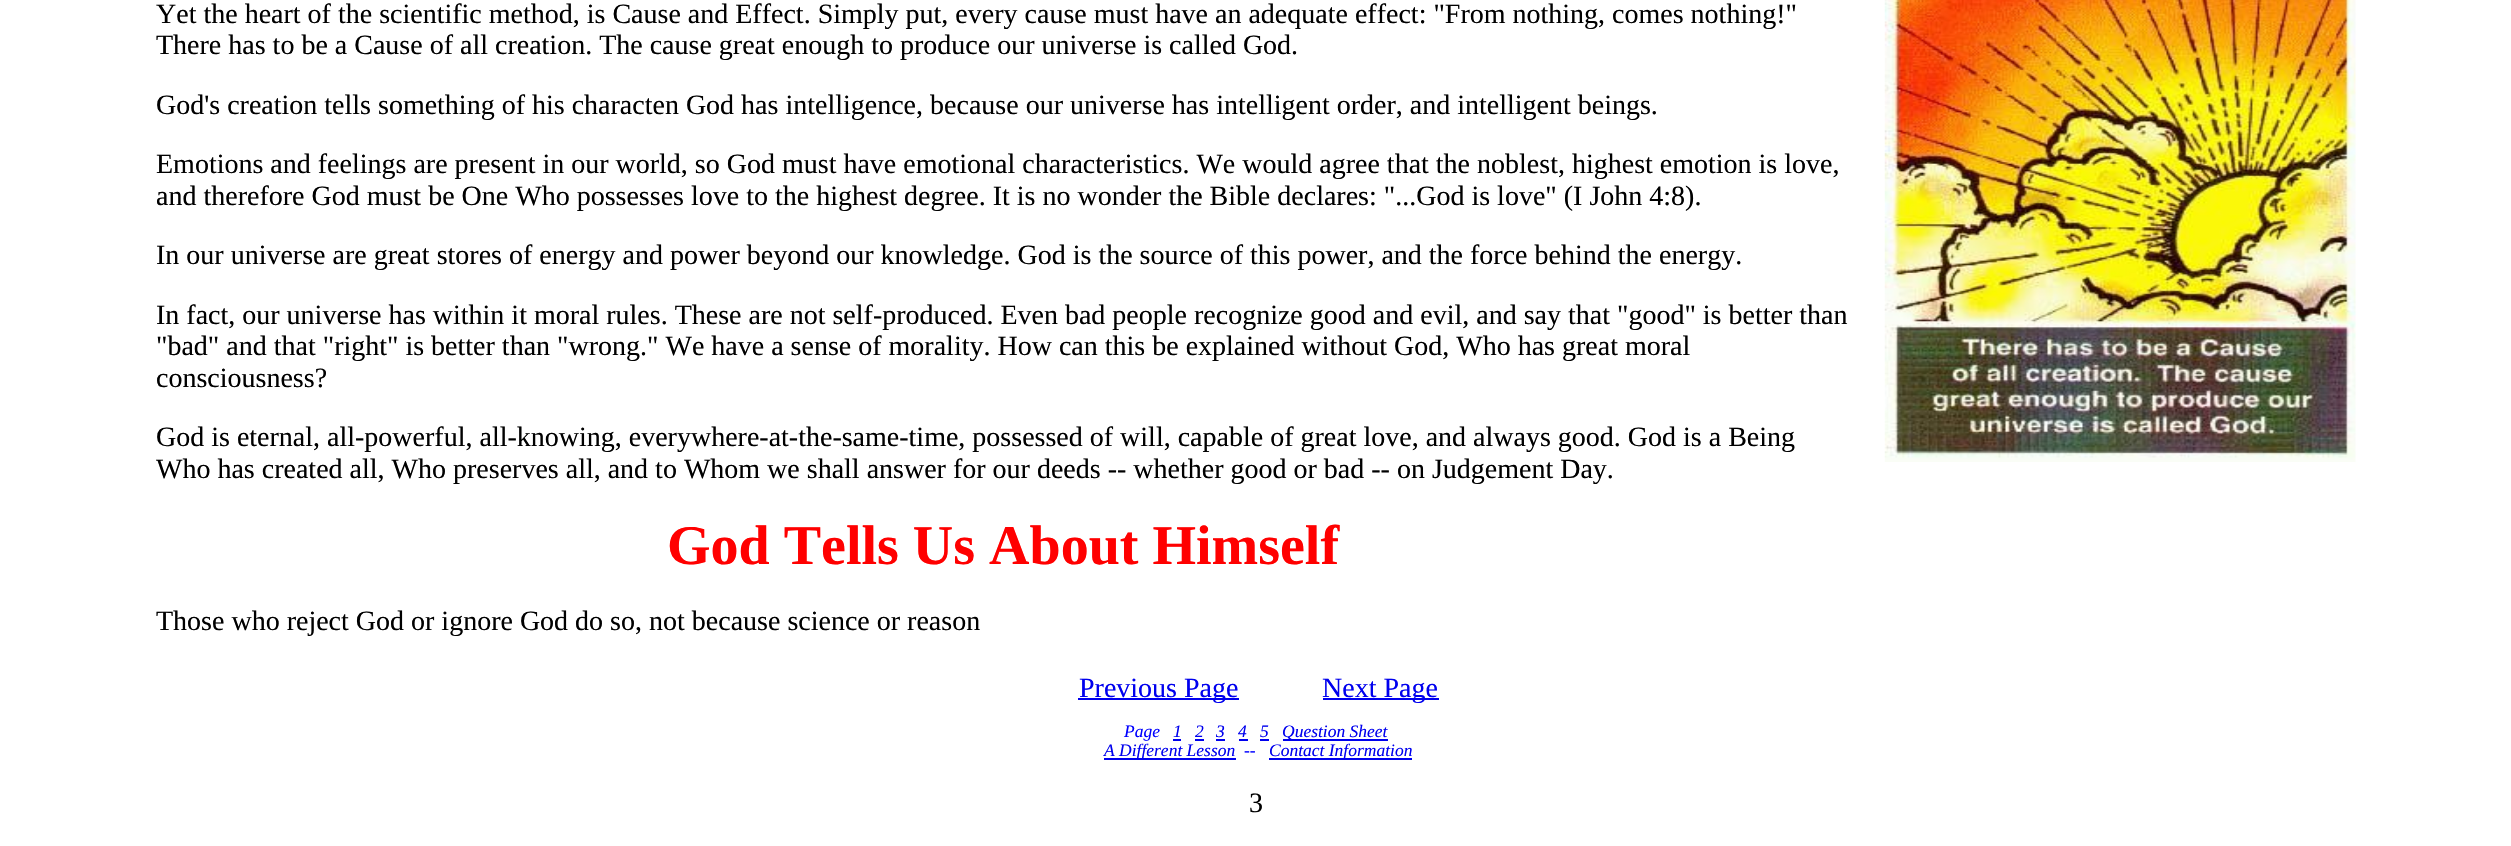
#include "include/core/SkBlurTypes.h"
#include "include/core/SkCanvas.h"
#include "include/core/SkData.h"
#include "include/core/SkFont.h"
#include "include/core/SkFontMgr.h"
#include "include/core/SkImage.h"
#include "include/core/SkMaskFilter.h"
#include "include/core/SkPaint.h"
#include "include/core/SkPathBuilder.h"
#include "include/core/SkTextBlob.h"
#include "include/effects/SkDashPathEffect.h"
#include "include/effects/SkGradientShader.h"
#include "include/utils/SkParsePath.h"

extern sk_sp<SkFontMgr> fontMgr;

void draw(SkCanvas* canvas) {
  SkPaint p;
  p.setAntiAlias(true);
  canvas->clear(SK_ColorWHITE);
  canvas->drawImageRect(SkImages::DeferredFromEncodedData(SkData::MakeFromFileName("images/1.png")), SkRect::MakeLTRB(1884, 0, 2356, 462), SkSamplingOptions());
  p.setColor(SkColorSetRGB(0, 0, 238));
  canvas->drawRect(SkRect::MakeLTRB(1078, 698, 1239, 700), p);
  canvas->drawRect(SkRect::MakeLTRB(1323, 698, 1439, 700), p);
  canvas->drawRect(SkRect::MakeLTRB(1173, 739, 1181, 741), p);
  canvas->drawRect(SkRect::MakeLTRB(1195, 739, 1204, 741), p);
  canvas->drawRect(SkRect::MakeLTRB(1216, 739, 1225, 741), p);
  canvas->drawRect(SkRect::MakeLTRB(1239, 739, 1248, 741), p);
  canvas->drawRect(SkRect::MakeLTRB(1260, 739, 1269, 741), p);
  canvas->drawRect(SkRect::MakeLTRB(1283, 739, 1388, 741), p);
  canvas->drawRect(SkRect::MakeLTRB(1104, 758, 1236, 760), p);
  canvas->drawRect(SkRect::MakeLTRB(1269, 758, 1412, 760), p);
  SkFont font1(fontMgr->matchFamilyStyle("Liberation Serif", SkFontStyle::Normal()), 28);
  font1.setSubpixel(true);
  p.setColor(SK_ColorBLACK);
  canvas->drawString("Yet the heart of the scientific method, is Cause and Effect. Simply put, every cause must have an adequate effect: \"From nothing, comes nothing!\"", 156, 23, font1, p);
  canvas->drawString("There has to be a Cause of all creation. The cause great enough to produce our universe is called God.", 156, 54, font1, p);
  canvas->drawString("God's creation tells something of his characten God has intelligence, because our universe has intelligent order, and intelligent beings.", 156, 114, font1, p);
  canvas->drawString("Emotions and feelings are present in our world, so God must have emotional characteristics. We would agree that the noblest, highest emotion is love,", 156, 173, font1, p);
  canvas->drawString("and therefore God must be One Who possesses love to the highest degree. It is no wonder the Bible declares: \"...God is love\" (I John 4:8).", 156, 205, font1, p);
  canvas->drawString("In our universe are great stores of energy and power beyond our knowledge. God is the source of this power, and the force behind the energy.", 156, 264, font1, p);
  canvas->drawString("In fact, our universe has within it moral rules. These are not self-produced. Even bad people recognize good and evil, and say that \"good\" is better than", 156, 324, font1, p);
  canvas->drawString("\"bad\" and that \"right\" is better than \"wrong.\" We have a sense of morality. How can this be explained without God, Who has great moral", 156, 355, font1, p);
  canvas->drawString("consciousness?", 156, 387, font1, p);
  canvas->drawString("God is eternal, all-powerful, all-knowing, everywhere-at-the-same-time, possessed of will, capable of great love, and always good. God is a Being", 156, 446, font1, p);
  canvas->drawString("Who has created all, Who preserves all, and to Whom we shall answer for our deeds -- whether good or bad -- on Judgement Day.", 156, 478, font1, p);
  SkFont font2(fontMgr->matchFamilyStyle("Liberation Serif", SkFontStyle::Bold()), 56);
  font2.setSubpixel(true);
  p.setColor(SkColorSetRGB(255, 0, 0));
  canvas->drawString("God Tells Us About Himself", 667, 564, font2, p);
  p.setColor(SK_ColorBLACK);
  canvas->drawString("Those who reject God or ignore God do so, not because science or reason", 156, 630, font1, p);
  p.setColor(SkColorSetRGB(0, 0, 238));
  canvas->drawString("Previous Page", 1079, 697, font1, p);
  canvas->drawString("Next Page", 1322, 697, font1, p);
  SkFont font3(fontMgr->matchFamilyStyle("Liberation Serif", SkFontStyle::Italic()), 17.5f);
  font3.setSubpixel(true);
  p.setColor(SkColorSetRGB(0, 0, 255));
  canvas->drawString("Page", 1124, 737, font3, p);
  p.setColor(SkColorSetRGB(0, 0, 238));
  canvas->drawString("1", 1173, 737, font3, p);
  canvas->drawString("2", 1195, 737, font3, p);
  canvas->drawString("3", 1216, 737, font3, p);
  canvas->drawString("4", 1238, 737, font3, p);
  canvas->drawString("5", 1260, 737, font3, p);
  canvas->drawString("Question Sheet", 1282, 737, font3, p);
  canvas->drawString("A Different Lesson", 1104, 756, font3, p);
  p.setColor(SkColorSetRGB(0, 0, 255));
  canvas->drawString("--", 1244, 756, font3, p);
  p.setColor(SkColorSetRGB(0, 0, 238));
  canvas->drawString("Contact Information", 1269, 756, font3, p);
  p.setColor(SK_ColorBLACK);
  canvas->drawString("3", 1249, 812, font1, p);
}
